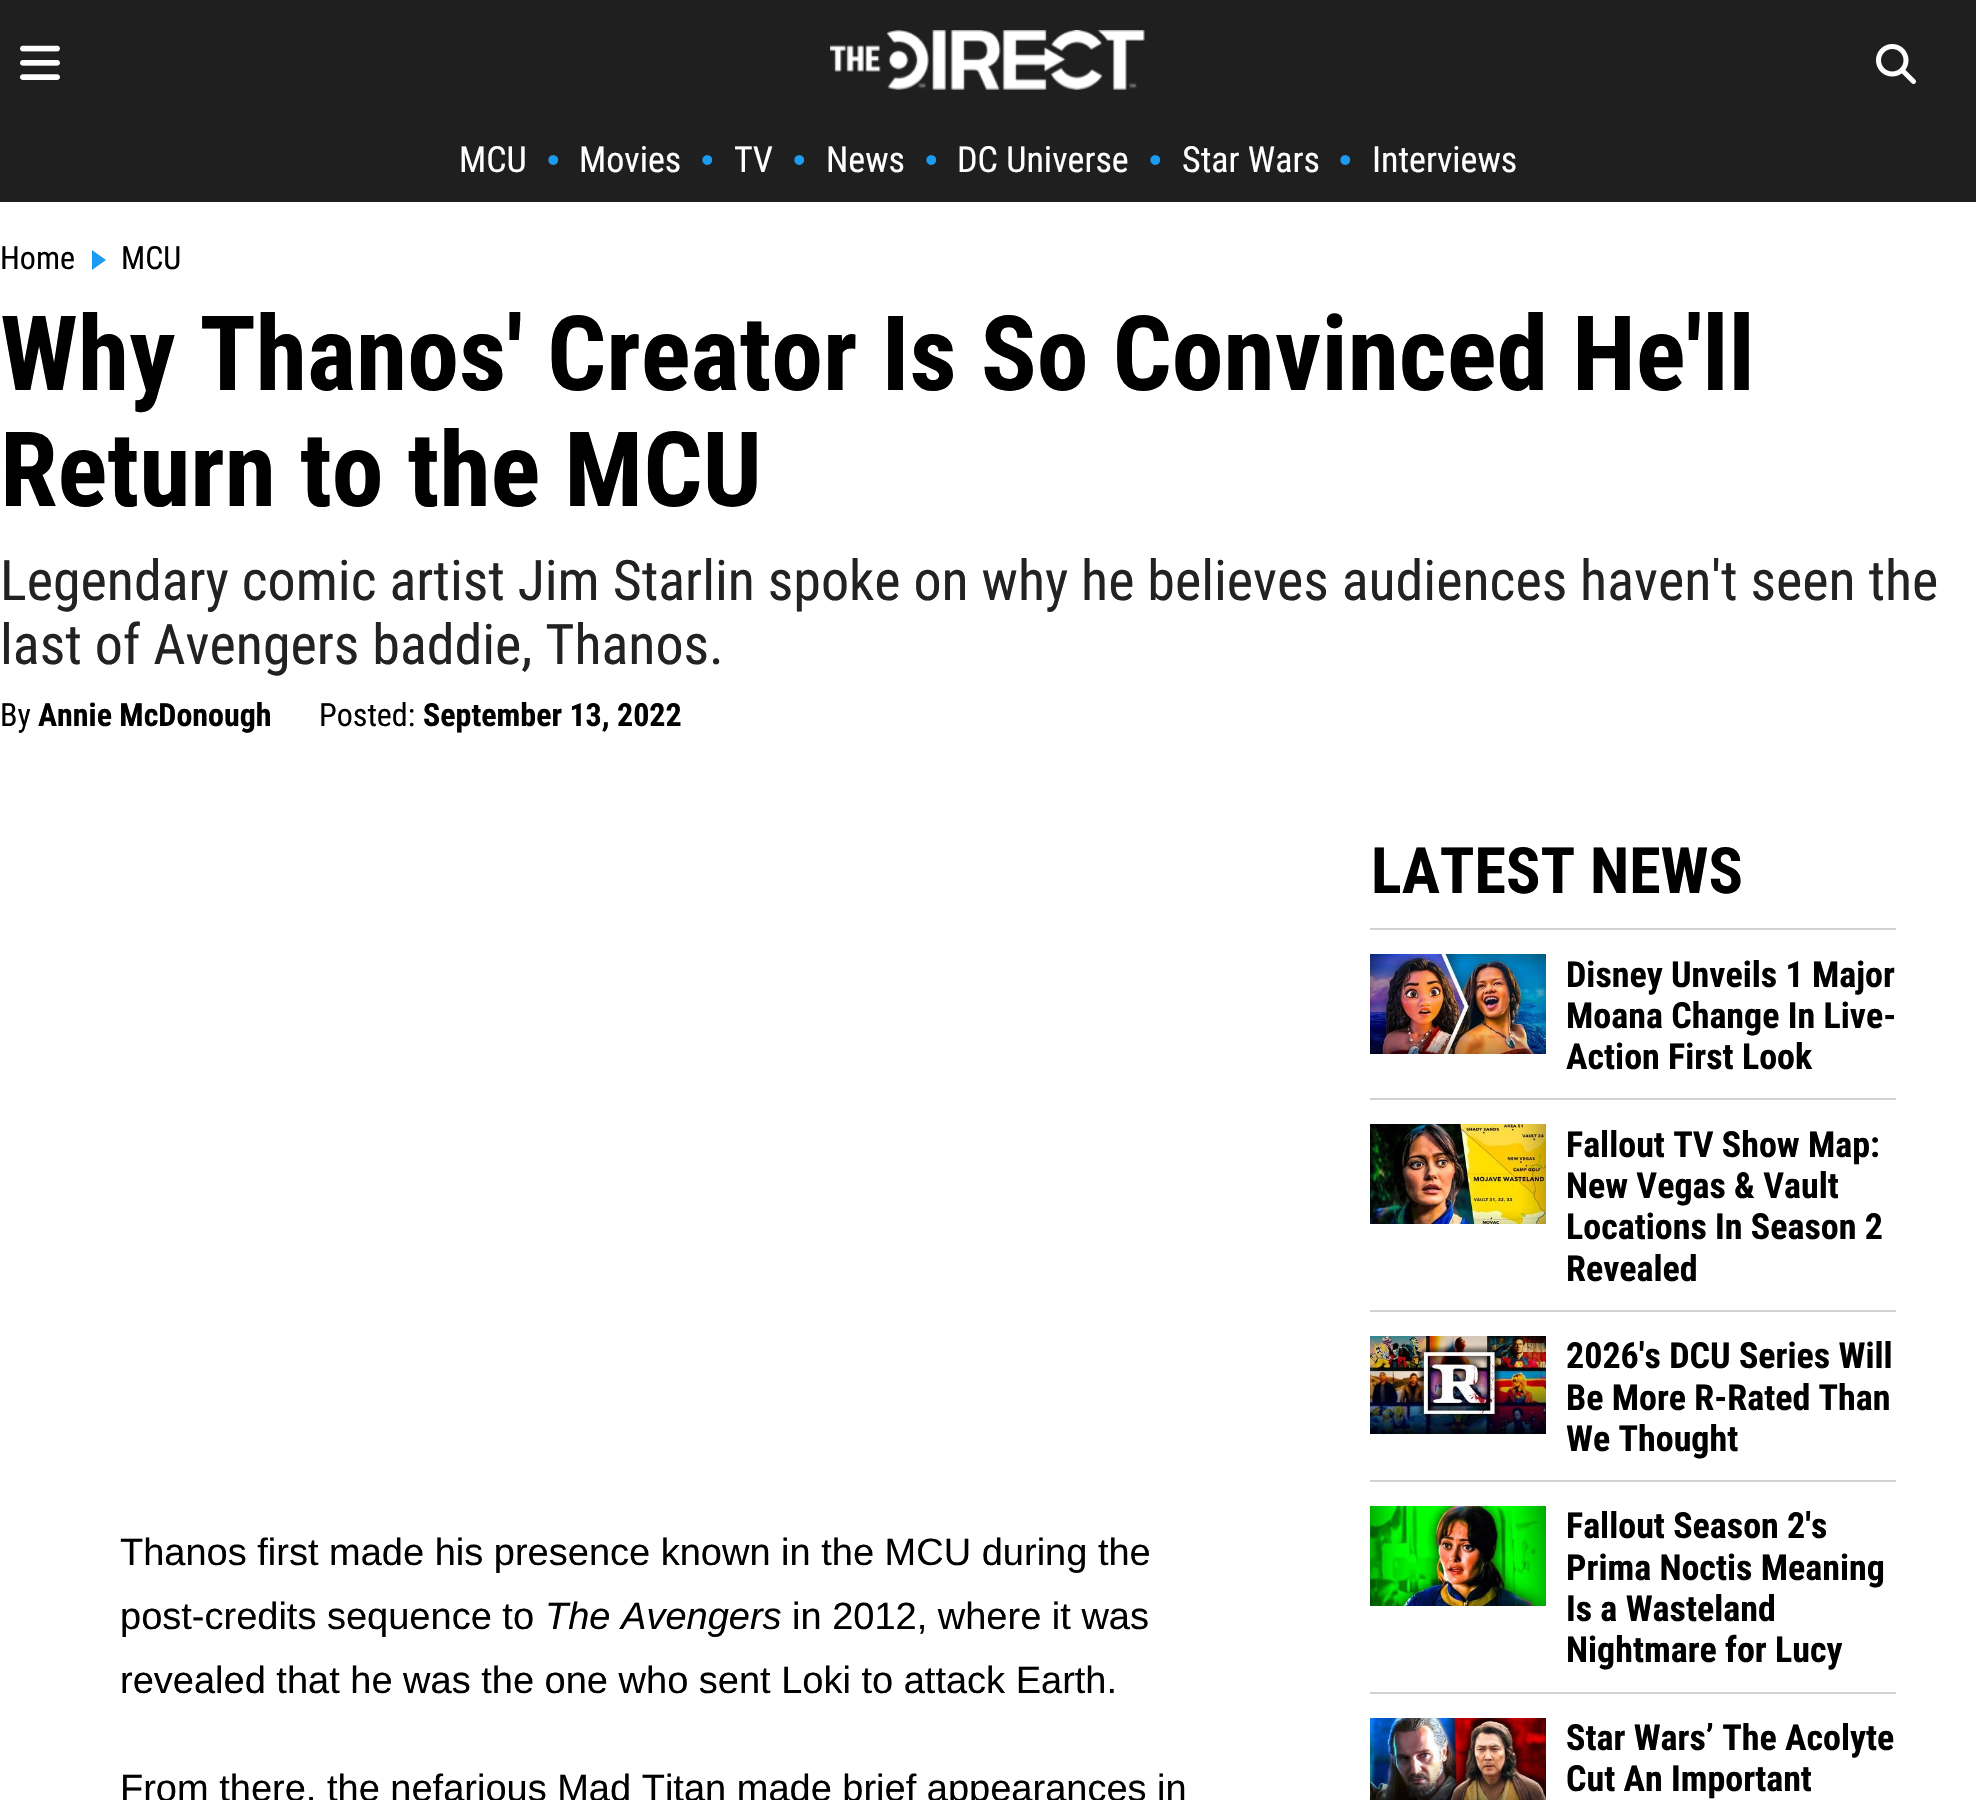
#include "include/core/SkBlurTypes.h"
#include "include/core/SkCanvas.h"
#include "include/core/SkData.h"
#include "include/core/SkFont.h"
#include "include/core/SkFontMgr.h"
#include "include/core/SkImage.h"
#include "include/core/SkMaskFilter.h"
#include "include/core/SkPaint.h"
#include "include/core/SkPathBuilder.h"
#include "include/core/SkTextBlob.h"
#include "include/effects/SkDashPathEffect.h"
#include "include/effects/SkGradientShader.h"
#include "include/utils/SkParsePath.h"

extern sk_sp<SkFontMgr> fontMgr;

void draw(SkCanvas* canvas) {
  SkPaint p;
  p.setAntiAlias(true);
  canvas->clear(SK_ColorWHITE);
  p.setColor(SkColorSetRGB(31, 31, 31));
  canvas->drawRect(SkRect::MakeLTRB(0, 0, 1976, 202), p);
  canvas->drawImageRect(SkImages::DeferredFromEncodedData(SkData::MakeFromFileName("images/1.png")), SkRect::MakeLTRB(20, 45, 60, 80), SkSamplingOptions());
  canvas->drawImageRect(SkImages::DeferredFromEncodedData(SkData::MakeFromFileName("images/2.png")), SkRect::MakeLTRB(830, 30, 1145, 90), SkSamplingOptions());
  canvas->drawImageRect(SkImages::DeferredFromEncodedData(SkData::MakeFromFileName("images/3.png")), SkRect::MakeLTRB(1876, 44, 1916, 84), SkSamplingOptions());
  p.setColor(SkColorSetRGB(29, 155, 240));
  canvas->drawPath(SkPathBuilder().moveTo(92, 270).lineTo(92, 250).lineTo(106, 260).close().detach(), p);
  p.setColor(SkColorSetRGB(211, 211, 211));
  canvas->drawRect(SkRect::MakeLTRB(1370, 928, 1896, 930), p);
  canvas->drawImageRect(SkImages::DeferredFromEncodedData(SkData::MakeFromFileName("images/4.png")), SkRect::MakeLTRB(1370, 954, 1546, 1054), SkSamplingOptions());
  canvas->drawRect(SkRect::MakeLTRB(1370, 1098, 1896, 1100), p);
  canvas->drawImageRect(SkImages::DeferredFromEncodedData(SkData::MakeFromFileName("images/5.png")), SkRect::MakeLTRB(1370, 1124, 1546, 1224), SkSamplingOptions());
  canvas->drawRect(SkRect::MakeLTRB(1370, 1310, 1896, 1312), p);
  canvas->drawImageRect(SkImages::DeferredFromEncodedData(SkData::MakeFromFileName("images/6.png")), SkRect::MakeLTRB(1370, 1336, 1546, 1434), SkSamplingOptions());
  canvas->drawRect(SkRect::MakeLTRB(1370, 1480, 1896, 1482), p);
  canvas->drawImageRect(SkImages::DeferredFromEncodedData(SkData::MakeFromFileName("images/7.png")), SkRect::MakeLTRB(1370, 1506, 1546, 1606), SkSamplingOptions());
  canvas->drawRect(SkRect::MakeLTRB(1370, 1692, 1896, 1694), p);
  canvas->drawImageRect(SkImages::DeferredFromEncodedData(SkData::MakeFromFileName("images/8.png")), SkRect::MakeLTRB(1370, 1718, 1546, 1800), SkSamplingOptions());
  SkFont font1(fontMgr->matchFamilyStyle("Roboto Condensed", SkFontStyle::Normal()), 36);
  font1.setSubpixel(true);
  p.setColor(SK_ColorWHITE);
  canvas->drawString("MCU", 459, 172, font1, p);
  SkFont font2(fontMgr->matchFamilyStyle("Liberation Sans", SkFontStyle::Normal()), 36);
  font2.setSubpixel(true);
  p.setColor(SkColorSetRGB(29, 155, 240));
  canvas->drawString("•", 547, 172, font2, p);
  p.setColor(SK_ColorWHITE);
  canvas->drawString("Movies", 579, 172, font1, p);
  p.setColor(SkColorSetRGB(29, 155, 240));
  canvas->drawString("•", 701, 172, font2, p);
  p.setColor(SK_ColorWHITE);
  canvas->drawString("TV", 734, 172, font1, p);
  p.setColor(SkColorSetRGB(29, 155, 240));
  canvas->drawString("•", 793, 172, font2, p);
  p.setColor(SK_ColorWHITE);
  canvas->drawString("News", 826, 172, font1, p);
  p.setColor(SkColorSetRGB(29, 155, 240));
  canvas->drawString("•", 925, 172, font2, p);
  p.setColor(SK_ColorWHITE);
  canvas->drawString("DC Universe", 957, 172, font1, p);
  p.setColor(SkColorSetRGB(29, 155, 240));
  canvas->drawString("•", 1149, 172, font2, p);
  p.setColor(SK_ColorWHITE);
  canvas->drawString("Star Wars", 1182, 172, font1, p);
  p.setColor(SkColorSetRGB(29, 155, 240));
  canvas->drawString("•", 1339, 172, font2, p);
  p.setColor(SK_ColorWHITE);
  canvas->drawString("Interviews", 1372, 172, font1, p);
  SkFont font3(fontMgr->matchFamilyStyle("Roboto Condensed", SkFontStyle::Normal()), 32);
  font3.setSubpixel(true);
  p.setColor(SK_ColorBLACK);
  canvas->drawString("Home", 0, 269, font3, p);
  canvas->drawString("MCU", 121, 269, font3, p);
  SkFont font4(fontMgr->matchFamilyStyle("Roboto Condensed", SkFontStyle::Bold()), 104);
  font4.setSubpixel(true);
  canvas->drawString("Why Thanos' Creator Is So Convinced He'll", 0, 390, font4, p);
  canvas->drawString("Return to the MCU", 0, 506, font4, p);
  SkFont font5(fontMgr->matchFamilyStyle("Roboto Condensed", SkFontStyle::Normal()), 56);
  font5.setSubpixel(true);
  p.setColor(SkColorSetRGB(34, 34, 34));
  canvas->drawString("Legendary comic artist Jim Starlin spoke on why he believes audiences haven't seen the", 0, 600, font5, p);
  canvas->drawString("last of Avengers baddie, Thanos.", 0, 664, font5, p);
  p.setColor(SK_ColorBLACK);
  canvas->drawString("By", 0, 726, font3, p);
  SkFont font6(fontMgr->matchFamilyStyle("Roboto Condensed", SkFontStyle::Bold()), 32);
  font6.setSubpixel(true);
  canvas->drawString("Annie McDonough", 38, 726, font6, p);
  canvas->drawString("Posted:", 319, 726, font3, p);
  canvas->drawString("September 13, 2022", 423, 726, font6, p);
  SkFont font7(fontMgr->matchFamilyStyle("Liberation Sans", SkFontStyle::Normal()), 38);
  font7.setSubpixel(true);
  canvas->drawString("Thanos first made his presence known in the MCU during the", 120, 1565, font7, p);
  canvas->drawString("post-credits sequence to", 120, 1629, font7, p);
  SkFont font8(fontMgr->matchFamilyStyle("Liberation Sans", SkFontStyle::Italic()), 38);
  font8.setSubpixel(true);
  canvas->drawString("The Avengers", 545, 1629, font8, p);
  canvas->drawString("in 2012, where it was", 792, 1629, font7, p);
  canvas->drawString("revealed that he was the one who sent Loki to attack Earth.", 120, 1693, font7, p);
  canvas->drawString("From there, the nefarious Mad Titan made brief appearances in", 120, 1801, font7, p);
  SkFont font9(fontMgr->matchFamilyStyle("Roboto Condensed", SkFontStyle::Bold()), 64);
  font9.setSubpixel(true);
  canvas->drawString("LATEST NEWS", 1371, 893, font9, p);
  SkFont font10(fontMgr->matchFamilyStyle("Roboto Condensed", SkFontStyle::Bold()), 36);
  font10.setSubpixel(true);
  canvas->drawString("Disney Unveils 1 Major", 1566, 987, font10, p);
  canvas->drawString("Moana Change In Live-", 1566, 1028, font10, p);
  canvas->drawString("Action First Look", 1566, 1069, font10, p);
  canvas->drawString("Fallout TV Show Map:", 1566, 1157, font10, p);
  canvas->drawString("New Vegas & Vault", 1566, 1198, font10, p);
  canvas->drawString("Locations In Season 2", 1566, 1239, font10, p);
  canvas->drawString("Revealed", 1566, 1281, font10, p);
  canvas->drawString("2026's DCU Series Will", 1566, 1368, font10, p);
  canvas->drawString("Be More R-Rated Than", 1566, 1410, font10, p);
  canvas->drawString("We Thought", 1566, 1451, font10, p);
  canvas->drawString("Fallout Season 2's", 1566, 1538, font10, p);
  canvas->drawString("Prima Noctis Meaning", 1566, 1580, font10, p);
  canvas->drawString("Is a Wasteland", 1566, 1621, font10, p);
  canvas->drawString("Nightmare for Lucy", 1566, 1662, font10, p);
  canvas->drawString("Star Wars’ The Acolyte", 1566, 1750, font10, p);
  canvas->drawString("Cut An Important", 1566, 1791, font10, p);
}
